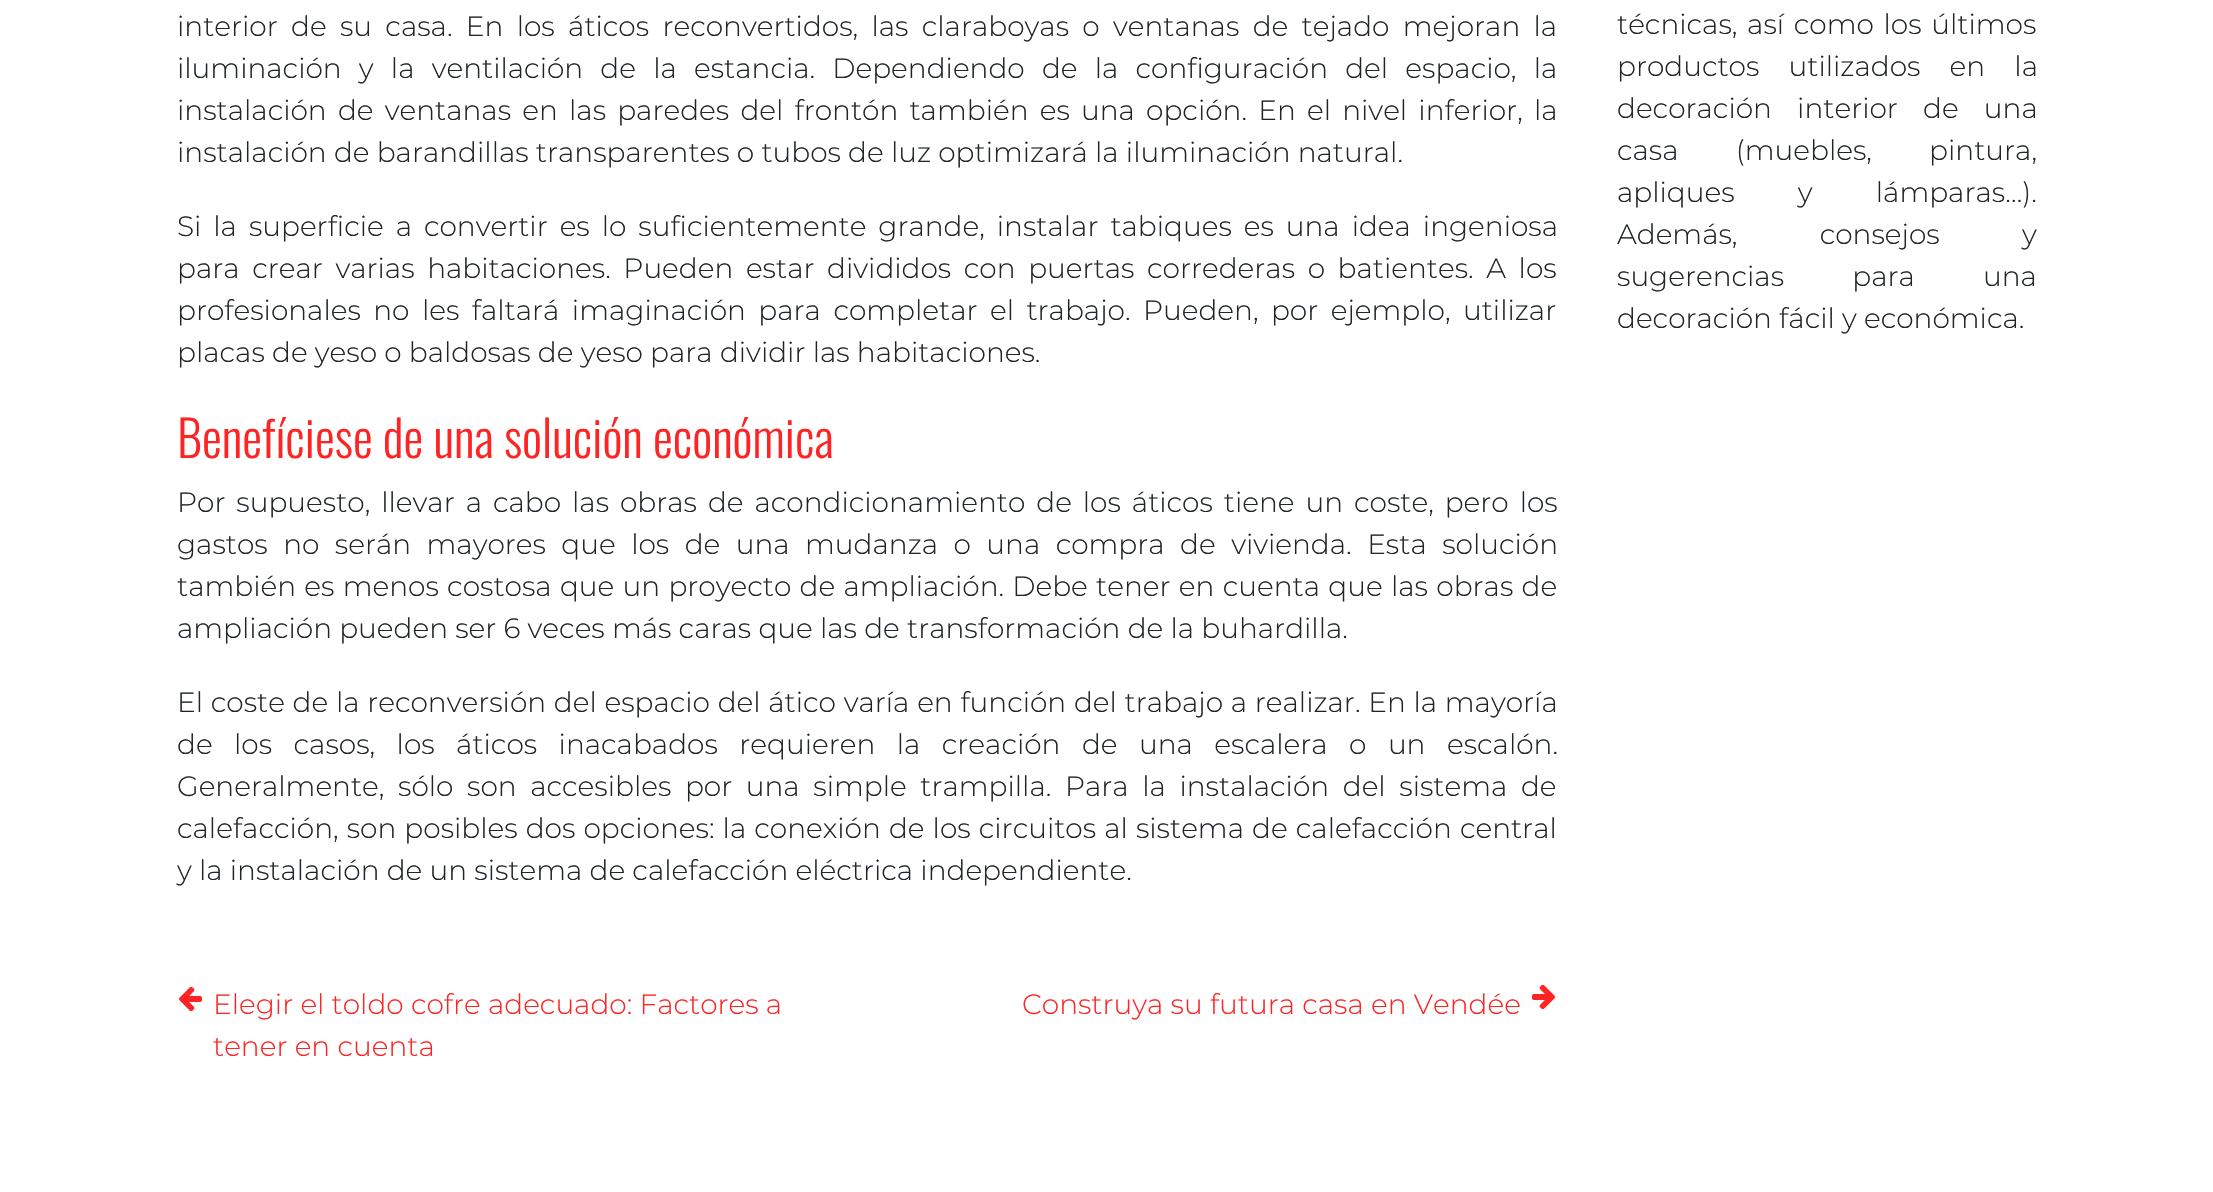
#include "include/core/SkBlurTypes.h"
#include "include/core/SkCanvas.h"
#include "include/core/SkData.h"
#include "include/core/SkFont.h"
#include "include/core/SkFontMgr.h"
#include "include/core/SkImage.h"
#include "include/core/SkMaskFilter.h"
#include "include/core/SkPaint.h"
#include "include/core/SkPathBuilder.h"
#include "include/core/SkTextBlob.h"
#include "include/effects/SkDashPathEffect.h"
#include "include/effects/SkGradientShader.h"
#include "include/utils/SkParsePath.h"

extern sk_sp<SkFontMgr> fontMgr;

void draw(SkCanvas* canvas) {
  SkPaint p;
  p.setAntiAlias(true);
  auto spacedText = [&](const char* s, float x, float y, const SkFont& font, const SkPaint& ink, float letter, float word) {
    std::vector<SkGlyphID> glyphs(font.countText(s, strlen(s), SkTextEncoding::kUTF8));
    std::vector<float> xs(glyphs.size());
    font.textToGlyphs(s, strlen(s), SkTextEncoding::kUTF8, glyphs);
    font.getXPos(glyphs, xs, x);
    float extra = 0;
    for (size_t i = 0; i < glyphs.size(); i++) {
      xs[i] += extra;
      extra += letter + word * (glyphs[i] == font.unicharToGlyph(' '));
    }
    canvas->drawTextBlob(SkTextBlob::MakeFromPosHGlyphs(glyphs, xs, y, font), 0, 0, ink);
  };
  canvas->clear(SK_ColorWHITE);
  canvas->drawImageRect(SkImages::DeferredFromEncodedData(SkData::MakeFromFileName("images/1.png")), SkRect::MakeLTRB(179, 986, 202, 1012), SkSamplingOptions());
  canvas->drawImageRect(SkImages::DeferredFromEncodedData(SkData::MakeFromFileName("images/2.png")), SkRect::MakeLTRB(1532, 984, 1555, 1010), SkSamplingOptions());
  SkFont font1(fontMgr->matchFamilyStyle("Montserrat", SkFontStyle(100, SkFontStyle::kNormal_Width, SkFontStyle::kUpright_Slant)), 28);
  font1.setSubpixel(true);
  p.setColor(SkColorSetRGB(33, 37, 41));
  spacedText("interior de su casa. En los áticos reconvertidos, las claraboyas o ventanas de tejado mejoran la", 177, 36, font1, p, 0, 6.1f);
  spacedText("iluminación y la ventilación de la estancia. Dependiendo de la configuración del espacio, la", 177, 78, font1, p, 0, 10);
  spacedText("instalación de ventanas en las paredes del frontón también es una opción. En el nivel inferior, la", 177, 120, font1, p, 0, 4);
  canvas->drawString("instalación de barandillas transparentes o tubos de luz optimizará la iluminación natural.", 177, 162, font1, p);
  spacedText("Si la superficie a convertir es lo suficientemente grande, instalar tabiques es una idea ingeniosa", 177, 236, font1, p, 0, 4.75f);
  spacedText("para crear varias habitaciones. Pueden estar divididos con puertas correderas o batientes. A los", 177, 278, font1, p, 0, 5.4f);
  spacedText("profesionales no les faltará imaginación para completar el trabajo. Pueden, por ejemplo, utilizar", 177, 320, font1, p, 0, 5.25f);
  canvas->drawString("placas de yeso o baldosas de yeso para dividir las habitaciones.", 177, 362, font1, p);
  SkFont font2(fontMgr->matchFamilyStyle("Oswald", SkFontStyle(300, SkFontStyle::kNormal_Width, SkFontStyle::kUpright_Slant)), 50);
  font2.setSubpixel(true);
  p.setColor(SkColorSetRGB(255, 36, 36));
  canvas->drawString("Benefíciese de una solución económica", 177, 458, font2, p);
  p.setColor(SkColorSetRGB(33, 37, 41));
  spacedText("Por supuesto, llevar a cabo las obras de acondicionamiento de los áticos tiene un coste, pero los", 177, 512, font1, p, 0, 3.75f);
  spacedText("gastos no serán mayores que los de una mudanza o una compra de vivienda. Esta solución", 177, 554, font1, p, 0, 8.25f);
  spacedText("también es menos costosa que un proyecto de ampliación. Debe tener en cuenta que las obras de", 177, 596, font1, p, 0, 1.1f);
  canvas->drawString("ampliación pueden ser 6 veces más caras que las de transformación de la buhardilla.", 177, 638, font1, p);
  spacedText("El coste de la reconversión del espacio del ático varía en función del trabajo a realizar. En la mayoría", 177, 712, font1, p, 0, 0.5f);
  spacedText("de los casos, los áticos inacabados requieren la creación de una escalera o un escalón.", 177, 754, font1, p, 0, 14.25f);
  spacedText("Generalmente, sólo son accesibles por una simple trampilla. Para la instalación del sistema de", 177, 796, font1, p, 0, 6.4f);
  spacedText("calefacción, son posibles dos opciones: la conexión de los circuitos al sistema de calefacción central", 177, 838, font1, p, 0, 0.9f);
  canvas->drawString("y la instalación de un sistema de calefacción eléctrica independiente.", 177, 880, font1, p);
  p.setColor(SkColorSetRGB(255, 36, 36));
  canvas->drawString("Elegir el toldo cofre adecuado: Factores a", 213, 1014, font1, p);
  canvas->drawString("tener en cuenta", 213, 1056, font1, p);
  canvas->drawString("Construya su futura casa en Vendée", 1022, 1014, font1, p);
  p.setColor(SkColorSetRGB(33, 37, 41));
  spacedText("técnicas, así como los últimos", 1617, 34, font1, p, 0, 2.5f);
  spacedText("productos utilizados en la", 1617, 76, font1, p, 0, 22);
  spacedText("decoración interior de una", 1617, 118, font1, p, 0, 18);
  spacedText("casa (muebles, pintura,", 1617, 160, font1, p, 0, 50);
  spacedText("apliques y lámparas…).", 1617, 202, font1, p, 0, 56);
  spacedText("Además, consejos y", 1617, 244, font1, p, 0, 75);
  spacedText("sugerencias para una", 1617, 286, font1, p, 0, 61);
  canvas->drawString("decoración fácil y económica.", 1617, 328, font1, p);
}
